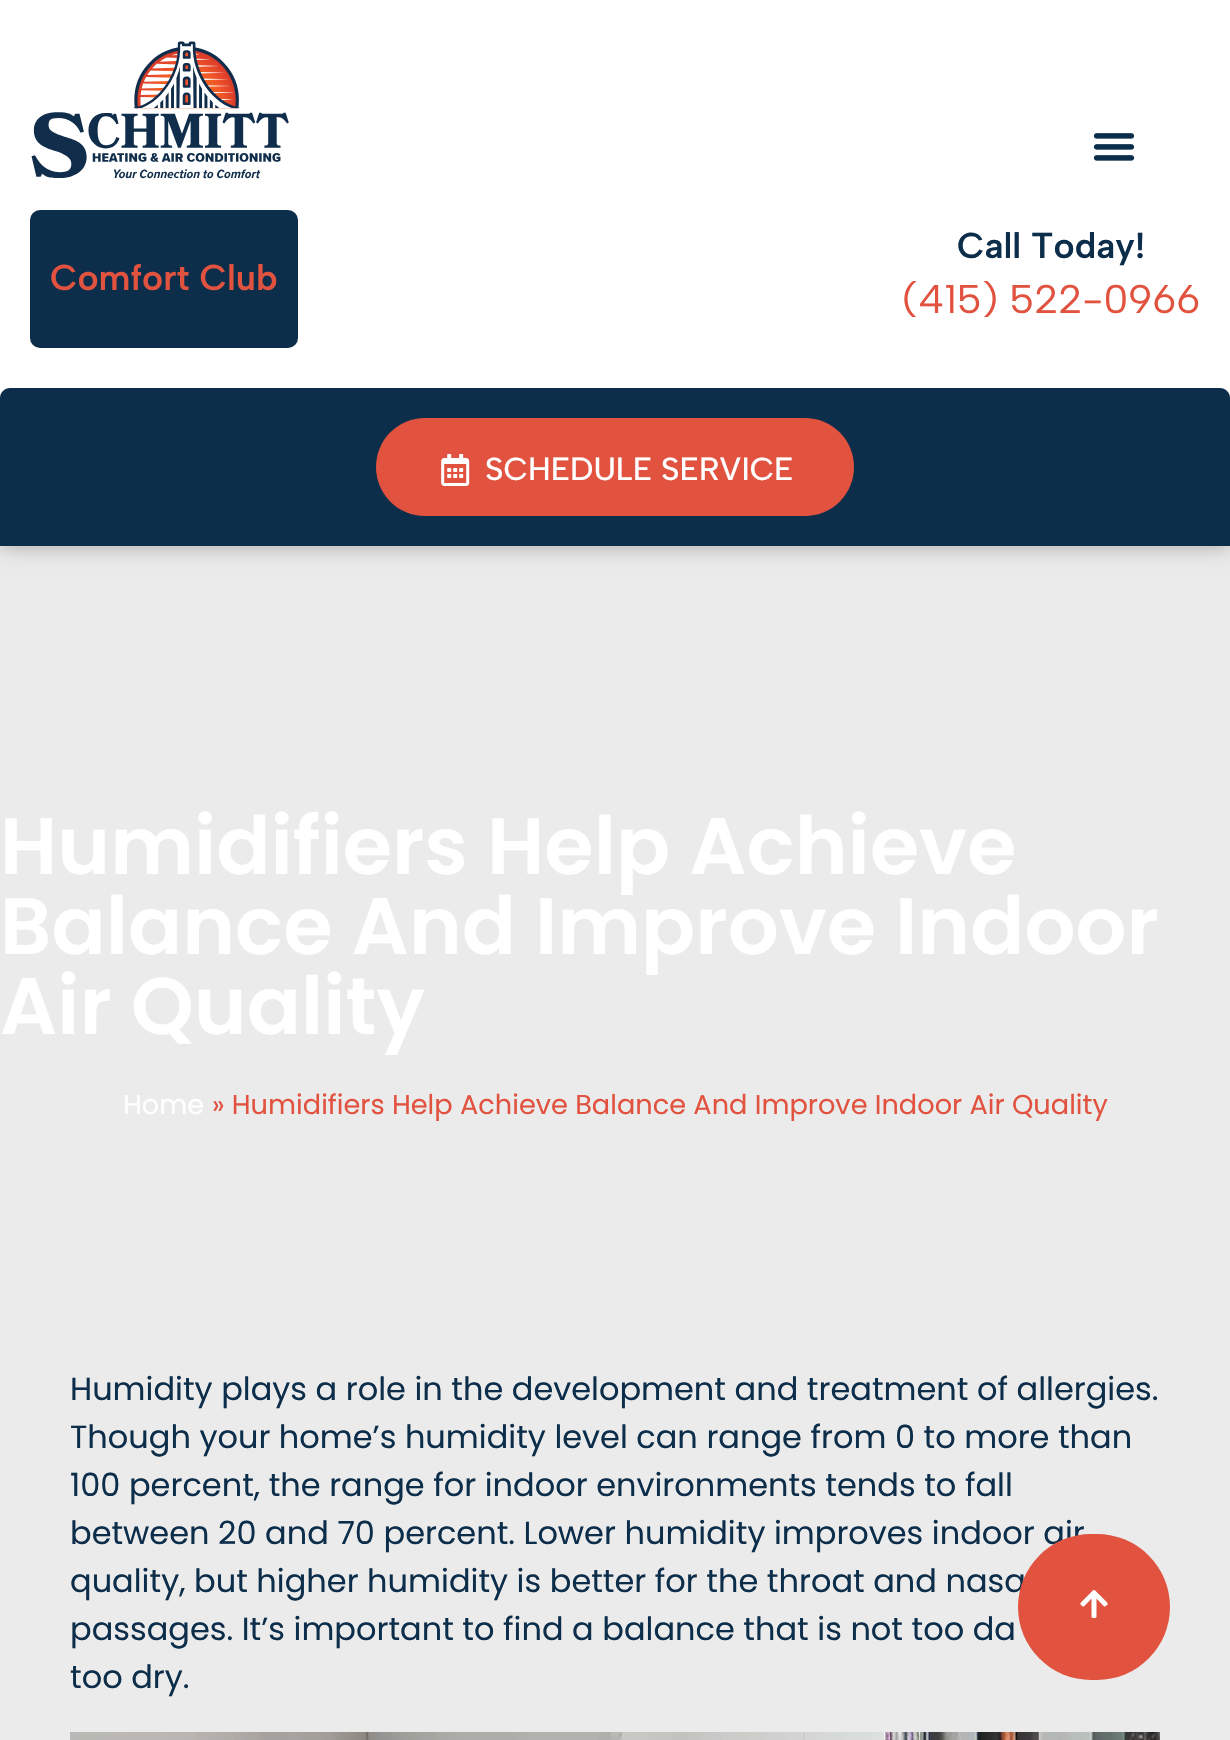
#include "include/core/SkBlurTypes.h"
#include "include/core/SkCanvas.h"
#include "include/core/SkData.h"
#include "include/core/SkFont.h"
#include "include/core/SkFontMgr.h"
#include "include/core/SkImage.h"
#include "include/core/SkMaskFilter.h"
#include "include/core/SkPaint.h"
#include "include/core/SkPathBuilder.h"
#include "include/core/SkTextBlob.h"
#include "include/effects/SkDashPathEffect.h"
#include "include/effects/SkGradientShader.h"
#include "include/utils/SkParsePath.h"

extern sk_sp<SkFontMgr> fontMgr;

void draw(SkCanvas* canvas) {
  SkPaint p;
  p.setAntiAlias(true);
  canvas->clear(SkColorSetRGB(235, 235, 235));
  p.setColor(SkColorSetARGB(77, 0, 0, 0));
  p.setMaskFilter(SkMaskFilter::MakeBlur(kNormal_SkBlurStyle, 10));
  canvas->drawRect(SkRect::MakeLTRB(0, 0, 1230, 546), p);
  p.setMaskFilter(nullptr);
  p.setColor(SK_ColorWHITE);
  canvas->drawRect(SkRect::MakeLTRB(0, 0, 1230, 398), p);
  canvas->drawImageRect(SkImages::DeferredFromEncodedData(SkData::MakeFromFileName("images/1.png")), SkRect::MakeLTRB(31, 41, 289, 179), SkSamplingOptions());
  canvas->drawImageRect(SkImages::DeferredFromEncodedData(SkData::MakeFromFileName("images/2.png")), SkRect::MakeLTRB(1093, 133, 1135, 161), SkSamplingOptions());
  p.setColor(SkColorSetRGB(13, 46, 75));
  canvas->drawRoundRect(SkRect::MakeLTRB(30, 210, 298, 348), 10, 10, p);
  canvas->drawPath(SkPathBuilder().moveTo(10, 388).lineTo(1220, 388).cubicTo(1225.5f, 388, 1230, 392.5f, 1230, 398).lineTo(1230, 546).lineTo(0, 546).lineTo(0, 398).cubicTo(0, 392.5f, 4.5f, 388, 10, 388).close().detach(), p);
  p.setColor(SkColorSetRGB(225, 82, 63));
  canvas->drawRoundRect(SkRect::MakeLTRB(376, 418, 854, 516), 49, 49, p);
  canvas->drawImageRect(SkImages::DeferredFromEncodedData(SkData::MakeFromFileName("images/3.png")), SkRect::MakeLTRB(441, 454, 470, 486), SkSamplingOptions());
  canvas->drawImageRect(SkImages::DeferredFromEncodedData(SkData::MakeFromFileName("images/5.png")), SkRect::MakeLTRB(70, 1732, 1160, 1740), SkSamplingOptions());
  SkFont font1(fontMgr->matchFamilyStyle("Albert Sans", SkFontStyle(600, SkFontStyle::kNormal_Width, SkFontStyle::kUpright_Slant)), 36);
  font1.setSubpixel(true);
  canvas->drawString("Comfort Club", 50, 290, font1, p);
  p.setColor(SkColorSetRGB(13, 46, 75));
  canvas->drawString("Call Today!", 957, 258, font1, p);
  SkFont font2(fontMgr->matchFamilyStyle("Albert Sans", SkFontStyle::Normal()), 40);
  font2.setSubpixel(true);
  p.setColor(SkColorSetRGB(225, 82, 63));
  canvas->drawString("(415) 522-0966", 902, 313, font2, p);
  SkFont font3(fontMgr->matchFamilyStyle("Albert Sans", SkFontStyle(500, SkFontStyle::kNormal_Width, SkFontStyle::kUpright_Slant)), 32);
  font3.setSubpixel(true);
  p.setColor(SK_ColorWHITE);
  canvas->drawString("SCHEDULE SERVICE", 485, 480, font3, p);
  SkFont font4(fontMgr->matchFamilyStyle("Poppins", SkFontStyle(600, SkFontStyle::kNormal_Width, SkFontStyle::kUpright_Slant)), 80);
  font4.setSubpixel(true);
  canvas->drawString("Humidifiers Help Achieve", 0, 874, font4, p);
  canvas->drawString("Balance And Improve Indoor", 0, 954, font4, p);
  canvas->drawString("Air Quality", 0, 1034, font4, p);
  SkFont font5(fontMgr->matchFamilyStyle("Poppins", SkFontStyle::Normal()), 27.2f);
  font5.setSubpixel(true);
  canvas->drawString("Home", 123, 1114, font5, p);
  p.setColor(SkColorSetRGB(225, 82, 63));
  canvas->drawString("» Humidifiers Help Achieve Balance And Improve Indoor Air Quality", 212, 1114, font5, p);
  SkFont font6(fontMgr->matchFamilyStyle("Poppins", SkFontStyle::Normal()), 32);
  font6.setSubpixel(true);
  p.setColor(SkColorSetRGB(13, 46, 75));
  canvas->drawString("Humidity plays a role in the development and treatment of allergies.", 70, 1400, font6, p);
  canvas->drawString("Though your home’s humidity level can range from 0 to more than", 70, 1448, font6, p);
  canvas->drawString("100 percent, the range for indoor environments tends to fall", 70, 1496, font6, p);
  canvas->drawString("between 20 and 70 percent. Lower humidity improves indoor air", 70, 1544, font6, p);
  canvas->drawString("quality, but higher humidity is better for the throat and nasa", 70, 1592, font6, p);
  p.setColor(SkColorSetRGB(225, 82, 63));
  canvas->drawRoundRect(SkRect::MakeLTRB(1018, 1534, 1170, 1680), 73, 73, p);
  canvas->drawImageRect(SkImages::DeferredFromEncodedData(SkData::MakeFromFileName("images/4.png")), SkRect::MakeLTRB(1080, 1590, 1108, 1618), SkSamplingOptions());
  p.setColor(SkColorSetRGB(13, 46, 75));
  canvas->drawString("passages. It’s important to find a balance that is not too da", 70, 1640, font6, p);
  canvas->drawString("too dry.", 70, 1688, font6, p);
}
